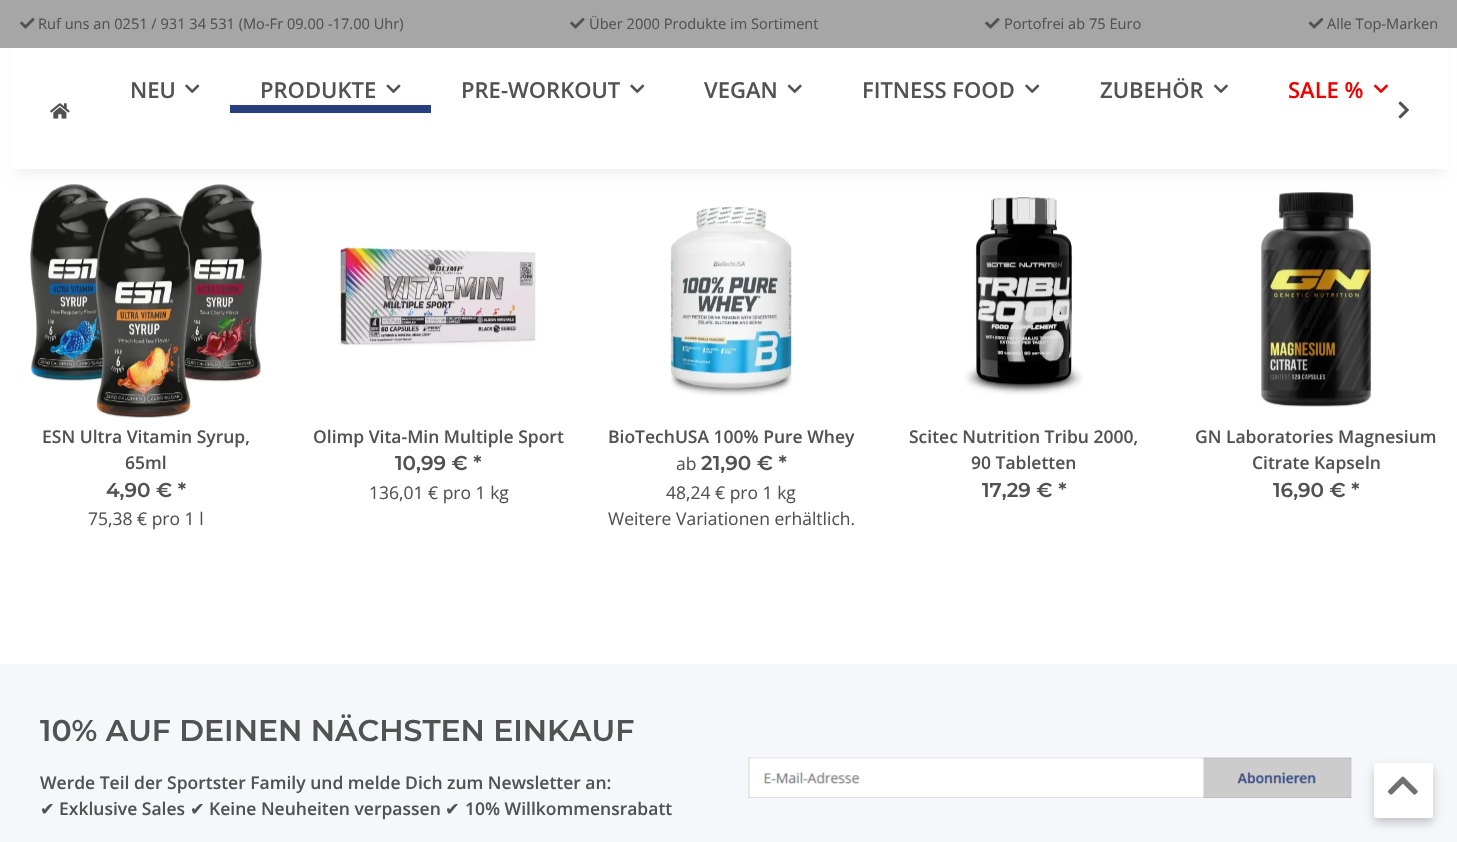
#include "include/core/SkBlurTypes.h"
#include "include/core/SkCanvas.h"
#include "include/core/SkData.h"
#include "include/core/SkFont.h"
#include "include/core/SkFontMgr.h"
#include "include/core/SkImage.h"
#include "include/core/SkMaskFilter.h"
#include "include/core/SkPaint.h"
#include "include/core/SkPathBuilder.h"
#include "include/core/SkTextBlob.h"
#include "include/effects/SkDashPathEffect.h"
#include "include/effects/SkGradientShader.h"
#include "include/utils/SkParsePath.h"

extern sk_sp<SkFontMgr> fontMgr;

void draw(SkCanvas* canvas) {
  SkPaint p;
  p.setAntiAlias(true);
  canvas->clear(SK_ColorWHITE);
  canvas->drawImageRect(SkImages::DeferredFromEncodedData(SkData::MakeFromFileName("images/10.png")), SkRect::MakeLTRB(30, 184, 262, 418), SkSamplingOptions());
  canvas->drawImageRect(SkImages::DeferredFromEncodedData(SkData::MakeFromFileName("images/14.png")), SkRect::MakeLTRB(1261, 190, 1372, 407), SkSamplingOptions());
  p.setColor(SkColorSetARGB(15, 0, 0, 0));
  p.setMaskFilter(SkMaskFilter::MakeBlur(kNormal_SkBlurStyle, 5.5f));
  canvas->drawRect(SkRect::MakeLTRB(15, 35, 1443, 174), p);
  p.setMaskFilter(nullptr);
  p.setColor(SK_ColorWHITE);
  canvas->drawRect(SkRect::MakeLTRB(10, 48, 1448, 169), p);
  p.setColor(SkColorSetRGB(166, 166, 166));
  canvas->drawRect(SkRect::MakeLTRB(0, 0, 1457, 48), p);
  canvas->drawImageRect(SkImages::DeferredFromEncodedData(SkData::MakeFromFileName("images/1.png")), SkRect::MakeLTRB(20, 18, 35, 29), SkSamplingOptions());
  canvas->drawImageRect(SkImages::DeferredFromEncodedData(SkData::MakeFromFileName("images/1.png")), SkRect::MakeLTRB(570, 18, 585, 29), SkSamplingOptions());
  canvas->drawImageRect(SkImages::DeferredFromEncodedData(SkData::MakeFromFileName("images/1.png")), SkRect::MakeLTRB(985, 18, 1000, 29), SkSamplingOptions());
  canvas->drawImageRect(SkImages::DeferredFromEncodedData(SkData::MakeFromFileName("images/2.png")), SkRect::MakeLTRB(1308, 17, 1324, 29), SkSamplingOptions());
  canvas->drawImageRect(SkImages::DeferredFromEncodedData(SkData::MakeFromFileName("images/3.png")), SkRect::MakeLTRB(185, 84, 200, 93), SkSamplingOptions());
  canvas->drawImageRect(SkImages::DeferredFromEncodedData(SkData::MakeFromFileName("images/4.png")), SkRect::MakeLTRB(386, 84, 401, 93), SkSamplingOptions());
  p.setColor(SkColorSetRGB(39, 63, 125));
  canvas->drawRect(SkRect::MakeLTRB(230, 105, 431, 113), p);
  canvas->drawImageRect(SkImages::DeferredFromEncodedData(SkData::MakeFromFileName("images/3.png")), SkRect::MakeLTRB(630, 84, 645, 93), SkSamplingOptions());
  canvas->drawImageRect(SkImages::DeferredFromEncodedData(SkData::MakeFromFileName("images/5.png")), SkRect::MakeLTRB(787, 84, 802, 93), SkSamplingOptions());
  canvas->drawImageRect(SkImages::DeferredFromEncodedData(SkData::MakeFromFileName("images/3.png")), SkRect::MakeLTRB(1025, 84, 1040, 93), SkSamplingOptions());
  canvas->drawImageRect(SkImages::DeferredFromEncodedData(SkData::MakeFromFileName("images/6.png")), SkRect::MakeLTRB(1214, 84, 1228, 93), SkSamplingOptions());
  canvas->drawImageRect(SkImages::DeferredFromEncodedData(SkData::MakeFromFileName("images/7.png")), SkRect::MakeLTRB(1374, 84, 1388, 93), SkSamplingOptions());
  canvas->drawImageRect(SkImages::DeferredFromEncodedData(SkData::MakeFromFileName("images/8.png")), SkRect::MakeLTRB(50, 103, 70, 119), SkSamplingOptions());
  canvas->drawImageRect(SkImages::DeferredFromEncodedData(SkData::MakeFromFileName("images/9.png")), SkRect::MakeLTRB(1398, 101, 1409, 119), SkSamplingOptions());
  canvas->drawImageRect(SkImages::DeferredFromEncodedData(SkData::MakeFromFileName("images/11.png")), SkRect::MakeLTRB(338, 246, 537, 346), SkSamplingOptions());
  canvas->drawImageRect(SkImages::DeferredFromEncodedData(SkData::MakeFromFileName("images/12.png")), SkRect::MakeLTRB(670, 206, 793, 396), SkSamplingOptions());
  canvas->drawImageRect(SkImages::DeferredFromEncodedData(SkData::MakeFromFileName("images/13.png")), SkRect::MakeLTRB(964, 197, 1083, 395), SkSamplingOptions());
  p.setColor(SkColorSetRGB(245, 247, 250));
  canvas->drawRect(SkRect::MakeLTRB(0, 664, 1457, 842), p);
  canvas->drawImageRect(SkImages::DeferredFromEncodedData(SkData::MakeFromFileName("images/15.png")), SkRect::MakeLTRB(748, 757, 1352, 798), SkSamplingOptions());
  p.setColor(SkColorSetARGB(51, 0, 0, 0));
  p.setMaskFilter(SkMaskFilter::MakeBlur(kNormal_SkBlurStyle, 5));
  canvas->drawRoundRect(SkRect::MakeLTRB(1374, 768, 1433, 823), 2.5f, 2.5f, p);
  p.setMaskFilter(nullptr);
  p.setColor(SK_ColorWHITE);
  canvas->drawRoundRect(SkRect::MakeLTRB(1374, 763, 1433, 818), 2.5f, 2.5f, p);
  canvas->drawImageRect(SkImages::DeferredFromEncodedData(SkData::MakeFromFileName("images/16.png")), SkRect::MakeLTRB(1387, 776, 1418, 795), SkSamplingOptions());
  SkFont font1(fontMgr->matchFamilyStyle("Open Sans", SkFontStyle::Normal()), 14.6f);
  font1.setSubpixel(true);
  p.setColor(SkColorSetRGB(82, 82, 82));
  canvas->drawString("Ruf uns an 0251 / 931 34 531 (Mo-Fr 09.00 -17.00 Uhr)", 38, 29, font1, p);
  canvas->drawString("Über 2000 Produkte im Sortiment", 589, 29, font1, p);
  canvas->drawString("Portofrei ab 75 Euro", 1004, 29, font1, p);
  canvas->drawString("Alle Top-Marken", 1327, 29, font1, p);
  SkFont font2(fontMgr->matchFamilyStyle("Open Sans", SkFontStyle(600, SkFontStyle::kNormal_Width, SkFontStyle::kUpright_Slant)), 22);
  font2.setSubpixel(true);
  canvas->drawString("NEU", 130, 98, font2, p);
  canvas->drawString("PRODUKTE", 260, 98, font2, p);
  canvas->drawString("PRE-WORKOUT", 461, 98, font2, p);
  canvas->drawString("VEGAN", 704, 98, font2, p);
  canvas->drawString("FITNESS FOOD", 862, 98, font2, p);
  canvas->drawString("ZUBEHÖR", 1100, 98, font2, p);
  p.setColor(SkColorSetRGB(241, 0, 0));
  canvas->drawString("SALE %", 1288, 98, font2, p);
  {
    const SkColor colors[] = {SkColorSetARGB(3, 255, 255, 255), SK_ColorWHITE};
    const float stops[] = {0, 0.7f};
    const SkPoint ends[] = {{1358, 110}, {1418, 110}};
    p.setShader(SkGradientShader::MakeLinear(ends, colors, stops, 2, SkTileMode::kClamp));
    p.setAlpha(255);
  }
  canvas->drawRect(SkRect::MakeLTRB(1358, 95, 1362, 98), p);
  SkFont font3(fontMgr->matchFamilyStyle("Open Sans", SkFontStyle(600, SkFontStyle::kNormal_Width, SkFontStyle::kUpright_Slant)), 17.5f);
  font3.setSubpixel(true);
  p.setShader(nullptr);
  p.setColor(SkColorSetRGB(82, 82, 82));
  canvas->drawString("ESN Ultra Vitamin Syrup,", 42, 443, font3, p);
  canvas->drawString("65ml", 125, 469, font3, p);
  SkFont font4(fontMgr->matchFamilyStyle("Montserrat", SkFontStyle(600, SkFontStyle::kNormal_Width, SkFontStyle::kUpright_Slant)), 20);
  font4.setSubpixel(true);
  canvas->drawString("4,90 € *", 106, 497, font4, p);
  SkFont font5(fontMgr->matchFamilyStyle("Open Sans", SkFontStyle::Normal()), 17.5f);
  font5.setSubpixel(true);
  canvas->drawString("75,38 € pro 1 l", 88, 525, font5, p);
  canvas->drawString("Olimp Vita-Min Multiple Sport", 313, 443, font3, p);
  canvas->drawString("10,99 € *", 395, 470, font4, p);
  canvas->drawString("136,01 € pro 1 kg", 369, 499, font5, p);
  canvas->drawString("BioTechUSA 100% Pure Whey", 608, 443, font3, p);
  canvas->drawString("ab", 676, 470, font5, p);
  canvas->drawString("21,90 € *", 701, 470, font4, p);
  canvas->drawString("48,24 € pro 1 kg", 666, 499, font5, p);
  canvas->drawString("Weitere Variationen erhältlich.", 608, 525, font5, p);
  canvas->drawString("Scitec Nutrition Tribu 2000,", 909, 443, font3, p);
  canvas->drawString("90 Tabletten", 971, 469, font3, p);
  canvas->drawString("17,29 € *", 982, 497, font4, p);
  canvas->drawString("GN Laboratories Magnesium", 1195, 443, font3, p);
  canvas->drawString("Citrate Kapseln", 1252, 469, font3, p);
  canvas->drawString("16,90 € *", 1273, 497, font4, p);
  SkFont font6(fontMgr->matchFamilyStyle("Montserrat", SkFontStyle(600, SkFontStyle::kNormal_Width, SkFontStyle::kUpright_Slant)), 30);
  font6.setSubpixel(true);
  canvas->drawString("10% AUF DEINEN NÄCHSTEN EINKAUF", 40, 741, font6, p);
  canvas->drawString("Werde Teil der Sportster Family und melde Dich zum Newsletter an:", 40, 789, font3, p);
  SkFont font7(fontMgr->matchFamilyStyle("DejaVu Sans", SkFontStyle::Normal()), 17.5f);
  font7.setSubpixel(true);
  canvas->drawString("✔", 40, 815, font7, p);
  canvas->drawString("Exklusive Sales", 59, 815, font3, p);
  canvas->drawString("✔", 190, 815, font7, p);
  canvas->drawString("Keine Neuheiten verpassen", 209, 815, font3, p);
  canvas->drawString("✔", 445, 815, font7, p);
  canvas->drawString("10% Willkommensrabatt", 465, 815, font3, p);
}
